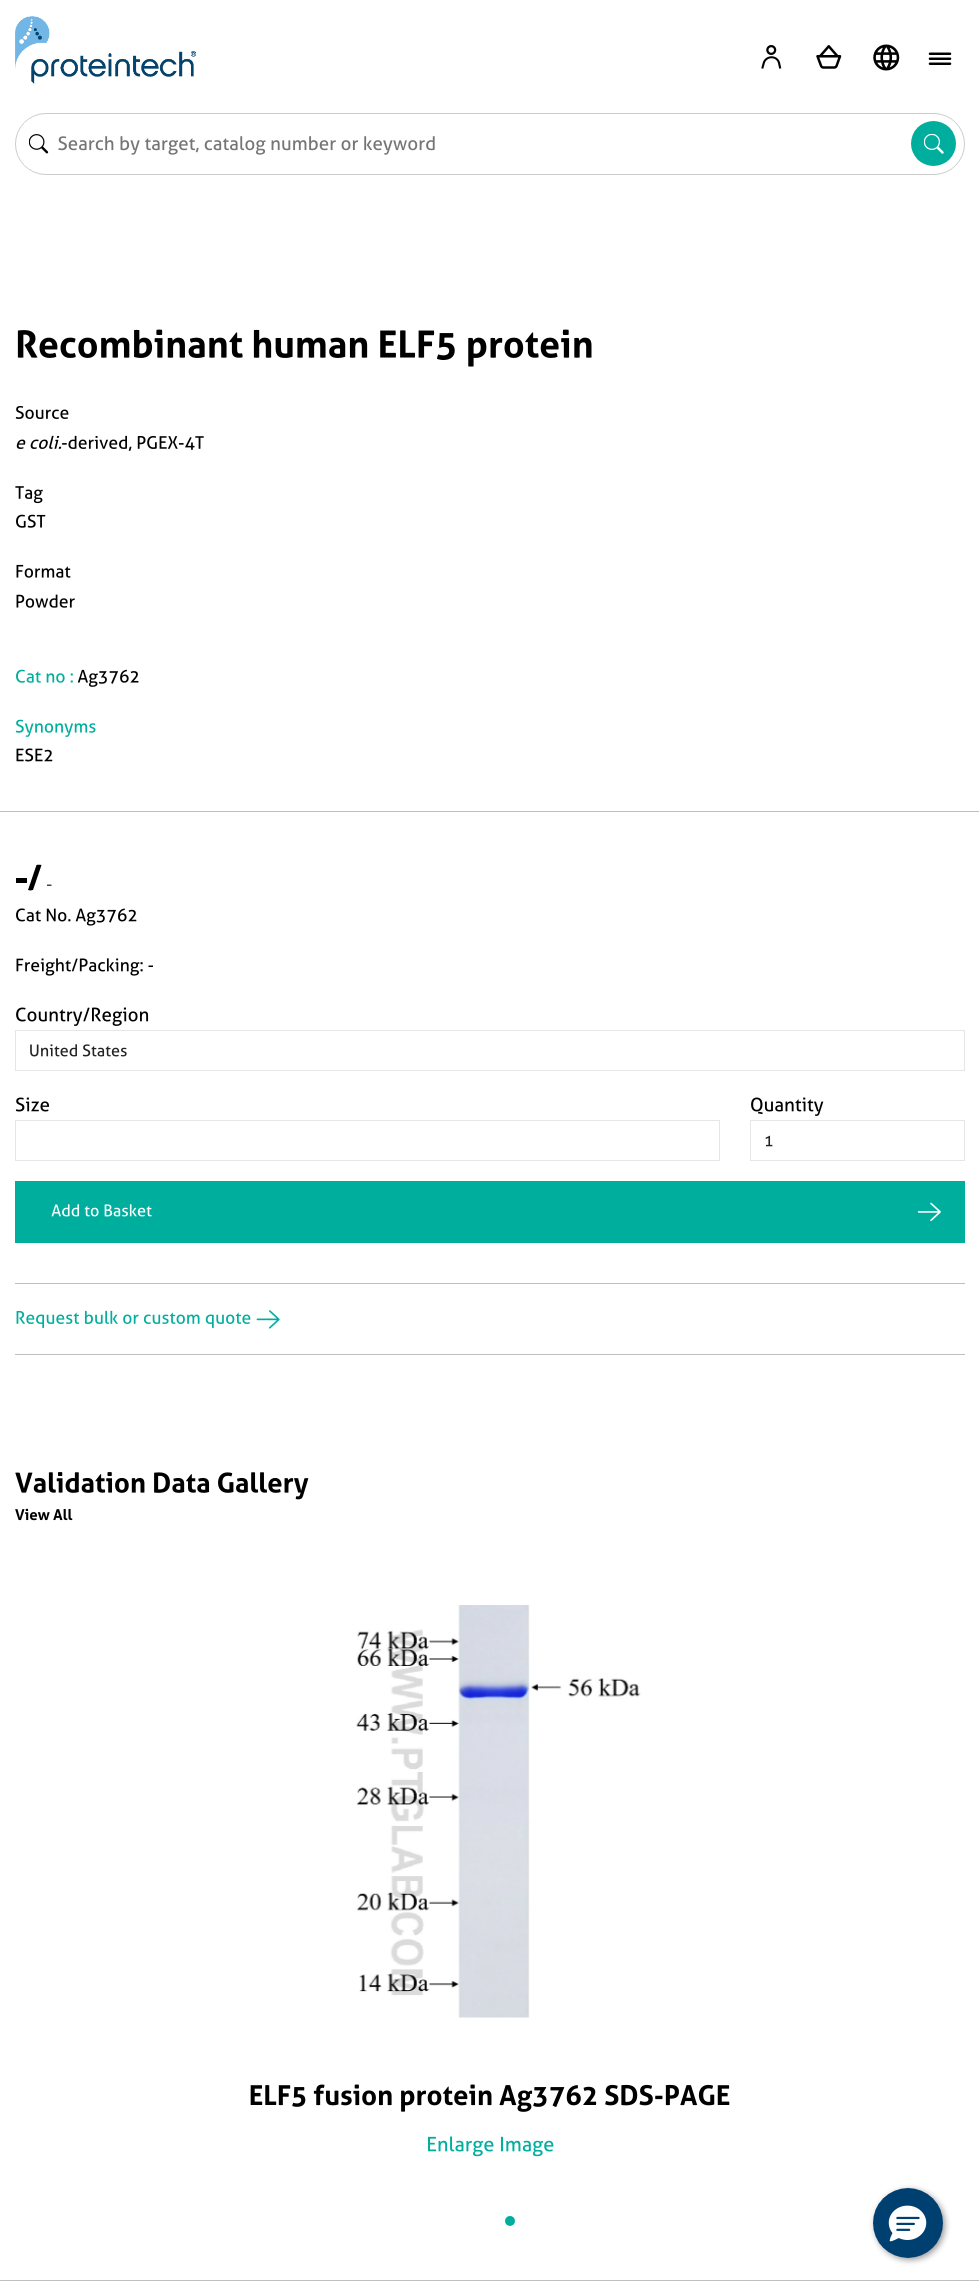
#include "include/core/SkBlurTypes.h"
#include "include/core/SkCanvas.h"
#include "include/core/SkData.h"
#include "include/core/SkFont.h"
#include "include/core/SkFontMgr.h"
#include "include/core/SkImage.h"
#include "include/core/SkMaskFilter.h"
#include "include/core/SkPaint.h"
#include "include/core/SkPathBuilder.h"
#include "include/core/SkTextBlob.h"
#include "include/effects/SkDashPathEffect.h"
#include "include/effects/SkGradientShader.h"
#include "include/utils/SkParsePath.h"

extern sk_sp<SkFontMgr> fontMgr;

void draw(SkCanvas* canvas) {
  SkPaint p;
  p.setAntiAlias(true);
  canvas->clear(SK_ColorWHITE);
  canvas->drawImageRect(SkImages::DeferredFromEncodedData(SkData::MakeFromFileName("images/1.png")), SkRect::MakeLTRB(15, 16, 196, 84), SkSamplingOptions());
  canvas->drawImageRect(SkImages::DeferredFromEncodedData(SkData::MakeFromFileName("images/2.png")), SkRect::MakeLTRB(761, 45, 782, 69), SkSamplingOptions());
  canvas->drawImageRect(SkImages::DeferredFromEncodedData(SkData::MakeFromFileName("images/3.png")), SkRect::MakeLTRB(816, 45, 842, 69), SkSamplingOptions());
  canvas->drawImageRect(SkImages::DeferredFromEncodedData(SkData::MakeFromFileName("images/4.png")), SkRect::MakeLTRB(873, 44, 900, 71), SkSamplingOptions());
  canvas->drawImageRect(SkImages::DeferredFromEncodedData(SkData::MakeFromFileName("images/5.png")), SkRect::MakeLTRB(928, 52, 952, 65), SkSamplingOptions());
  p.setStyle(SkPaint::kStroke_Style);
  p.setStrokeWidth(1);
  p.setColor(SkColorSetRGB(204, 204, 204));
  canvas->drawRoundRect(SkRect::MakeLTRB(15.5f, 113.5f, 964.5f, 174.5f), 30.5f, 30.5f, p);
  canvas->drawImageRect(SkImages::DeferredFromEncodedData(SkData::MakeFromFileName("images/6.png")), SkRect::MakeLTRB(29, 134, 49, 154), SkSamplingOptions());
  canvas->drawImageRect(SkImages::DeferredFromEncodedData(SkData::MakeFromFileName("images/7.png")), SkRect::MakeLTRB(58, 136, 435, 155), SkSamplingOptions());
  p.setStyle(SkPaint::kFill_Style);
  p.setColor(SkColorSetRGB(0, 174, 158));
  canvas->drawCircle(933.5f, 143.5f, 22.5f, p);
  canvas->drawImageRect(SkImages::DeferredFromEncodedData(SkData::MakeFromFileName("images/8.png")), SkRect::MakeLTRB(924, 134, 944, 154), SkSamplingOptions());
  canvas->drawImageRect(SkImages::DeferredFromEncodedData(SkData::MakeFromFileName("images/9.png")), SkRect::MakeLTRB(17, 329, 592, 367), SkSamplingOptions());
  canvas->drawImageRect(SkImages::DeferredFromEncodedData(SkData::MakeFromFileName("images/10.png")), SkRect::MakeLTRB(15, 406, 69, 419), SkSamplingOptions());
  canvas->drawImageRect(SkImages::DeferredFromEncodedData(SkData::MakeFromFileName("images/11.png")), SkRect::MakeLTRB(16, 435, 62, 449), SkSamplingOptions());
  canvas->drawImageRect(SkImages::DeferredFromEncodedData(SkData::MakeFromFileName("images/12.png")), SkRect::MakeLTRB(62, 435, 204, 451), SkSamplingOptions());
  canvas->drawImageRect(SkImages::DeferredFromEncodedData(SkData::MakeFromFileName("images/13.png")), SkRect::MakeLTRB(15, 486, 43, 504), SkSamplingOptions());
  canvas->drawImageRect(SkImages::DeferredFromEncodedData(SkData::MakeFromFileName("images/14.png")), SkRect::MakeLTRB(16, 514, 46, 528), SkSamplingOptions());
  canvas->drawImageRect(SkImages::DeferredFromEncodedData(SkData::MakeFromFileName("images/15.png")), SkRect::MakeLTRB(16, 564, 71, 578), SkSamplingOptions());
  canvas->drawImageRect(SkImages::DeferredFromEncodedData(SkData::MakeFromFileName("images/16.png")), SkRect::MakeLTRB(16, 594, 75, 608), SkSamplingOptions());
  canvas->drawImageRect(SkImages::DeferredFromEncodedData(SkData::MakeFromFileName("images/17.png")), SkRect::MakeLTRB(16, 669, 73, 683), SkSamplingOptions());
  canvas->drawImageRect(SkImages::DeferredFromEncodedData(SkData::MakeFromFileName("images/18.png")), SkRect::MakeLTRB(77, 669, 139, 687), SkSamplingOptions());
  canvas->drawImageRect(SkImages::DeferredFromEncodedData(SkData::MakeFromFileName("images/19.png")), SkRect::MakeLTRB(15, 719, 96, 737), SkSamplingOptions());
  canvas->drawImageRect(SkImages::DeferredFromEncodedData(SkData::MakeFromFileName("images/20.png")), SkRect::MakeLTRB(16, 748, 53, 762), SkSamplingOptions());
  p.setColor(SkColorSetRGB(191, 191, 191));
  canvas->drawRect(SkRect::MakeLTRB(0, 811, 979, 812), p);
  p.setColor(SK_ColorBLACK);
  canvas->drawRect(SkRect::MakeLTRB(16, 878, 27, 883), p);
  canvas->drawPath(SkPathBuilder().moveTo(36.5f, 865).cubicTo(38, 864.5f, 39.5f, 864.5f, 41.5f, 865).lineTo(33, 890).cubicTo(31, 890.5f, 29.5f, 890.5f, 28, 890).close().detach(), p);
  p.setColor(SkColorSetRGB(69, 69, 69));
  canvas->drawPath(SkPathBuilder().moveTo(51.5f, 884.5f).lineTo(51.5f, 886).lineTo(47, 886).lineTo(47, 884.5f).close().detach(), p);
  canvas->drawImageRect(SkImages::DeferredFromEncodedData(SkData::MakeFromFileName("images/21.png")), SkRect::MakeLTRB(16, 908, 71, 922), SkSamplingOptions());
  canvas->drawImageRect(SkImages::DeferredFromEncodedData(SkData::MakeFromFileName("images/22.png")), SkRect::MakeLTRB(75, 908, 137, 926), SkSamplingOptions());
  canvas->drawImageRect(SkImages::DeferredFromEncodedData(SkData::MakeFromFileName("images/23.png")), SkRect::MakeLTRB(16, 958, 143, 976), SkSamplingOptions());
  p.setColor(SK_ColorBLACK);
  canvas->drawPath(SkPathBuilder().moveTo(153, 965.5f).lineTo(153, 967).lineTo(148.5f, 967).lineTo(148.5f, 965.5f).close().detach(), p);
  canvas->drawImageRect(SkImages::DeferredFromEncodedData(SkData::MakeFromFileName("images/24.png")), SkRect::MakeLTRB(16, 1007, 149, 1026), SkSamplingOptions());
  p.setStyle(SkPaint::kStroke_Style);
  p.setColor(SkColorSetRGB(230, 230, 230));
  canvas->drawRect(SkRect::MakeLTRB(15.5f, 1030.5f, 964.5f, 1070.5f), p);
  canvas->drawImageRect(SkImages::DeferredFromEncodedData(SkData::MakeFromFileName("images/25.png")), SkRect::MakeLTRB(30, 1044, 127, 1057), SkSamplingOptions());
  canvas->drawImageRect(SkImages::DeferredFromEncodedData(SkData::MakeFromFileName("images/26.png")), SkRect::MakeLTRB(15, 1097, 50, 1112), SkSamplingOptions());
  canvas->drawRect(SkRect::MakeLTRB(15.5f, 1120.5f, 719.5f, 1160.5f), p);
  canvas->drawImageRect(SkImages::DeferredFromEncodedData(SkData::MakeFromFileName("images/27.png")), SkRect::MakeLTRB(751, 1097, 824, 1116), SkSamplingOptions());
  canvas->drawRect(SkRect::MakeLTRB(750.5f, 1120.5f, 964.5f, 1160.5f), p);
  canvas->drawImageRect(SkImages::DeferredFromEncodedData(SkData::MakeFromFileName("images/28.png")), SkRect::MakeLTRB(765, 1135, 773, 1147), SkSamplingOptions());
  p.setStyle(SkPaint::kFill_Style);
  p.setColor(SkColorSetRGB(0, 174, 158));
  canvas->drawRect(SkRect::MakeLTRB(15, 1181, 965, 1243), p);
  canvas->drawImageRect(SkImages::DeferredFromEncodedData(SkData::MakeFromFileName("images/29.png")), SkRect::MakeLTRB(51, 1204, 152, 1217), SkSamplingOptions());
  canvas->drawImageRect(SkImages::DeferredFromEncodedData(SkData::MakeFromFileName("images/30.png")), SkRect::MakeLTRB(917, 1202, 941, 1221), SkSamplingOptions());
  p.setColor(SkColorSetRGB(191, 191, 191));
  canvas->drawRect(SkRect::MakeLTRB(15, 1283, 965, 1284), p);
  canvas->drawImageRect(SkImages::DeferredFromEncodedData(SkData::MakeFromFileName("images/31.png")), SkRect::MakeLTRB(16, 1310, 251, 1328), SkSamplingOptions());
  canvas->drawImageRect(SkImages::DeferredFromEncodedData(SkData::MakeFromFileName("images/32.png")), SkRect::MakeLTRB(256, 1310, 280, 1329), SkSamplingOptions());
  canvas->drawRect(SkRect::MakeLTRB(15, 1354, 965, 1355), p);
  canvas->drawImageRect(SkImages::DeferredFromEncodedData(SkData::MakeFromFileName("images/33.png")), SkRect::MakeLTRB(15, 1472, 309, 1500), SkSamplingOptions());
  canvas->drawImageRect(SkImages::DeferredFromEncodedData(SkData::MakeFromFileName("images/34.png")), SkRect::MakeLTRB(15, 1508, 73, 1521), SkSamplingOptions());
  canvas->drawImageRect(SkImages::DeferredFromEncodedData(SkData::MakeFromFileName("images/35.png")), SkRect::MakeLTRB(356, 1605, 641, 2018), SkSamplingOptions());
  canvas->drawImageRect(SkImages::DeferredFromEncodedData(SkData::MakeFromFileName("images/36.png")), SkRect::MakeLTRB(250, 2084, 730, 2112), SkSamplingOptions());
  canvas->drawImageRect(SkImages::DeferredFromEncodedData(SkData::MakeFromFileName("images/37.png")), SkRect::MakeLTRB(428, 2136, 554, 2157), SkSamplingOptions());
  p.setColor(SkColorSetRGB(0, 174, 158));
  canvas->drawCircle(510, 2221, 5, p);
  p.setColor(SkColorSetRGB(191, 191, 191));
  canvas->drawRect(SkRect::MakeLTRB(0, 2280, 979, 2281), p);
  p.setColor(SkColorSetARGB(128, 45, 45, 45));
  p.setMaskFilter(SkMaskFilter::MakeBlur(kNormal_SkBlurStyle, 3));
  canvas->drawRoundRect(SkRect::MakeLTRB(875, 2190, 945, 2260), 35, 35, p);
  p.setMaskFilter(nullptr);
  p.setColor(SkColorSetRGB(0, 64, 113));
  canvas->drawCircle(908, 2223, 35, p);
  canvas->drawImageRect(SkImages::DeferredFromEncodedData(SkData::MakeFromFileName("images/38.png")), SkRect::MakeLTRB(888, 2205, 927, 2242), SkSamplingOptions());
}
